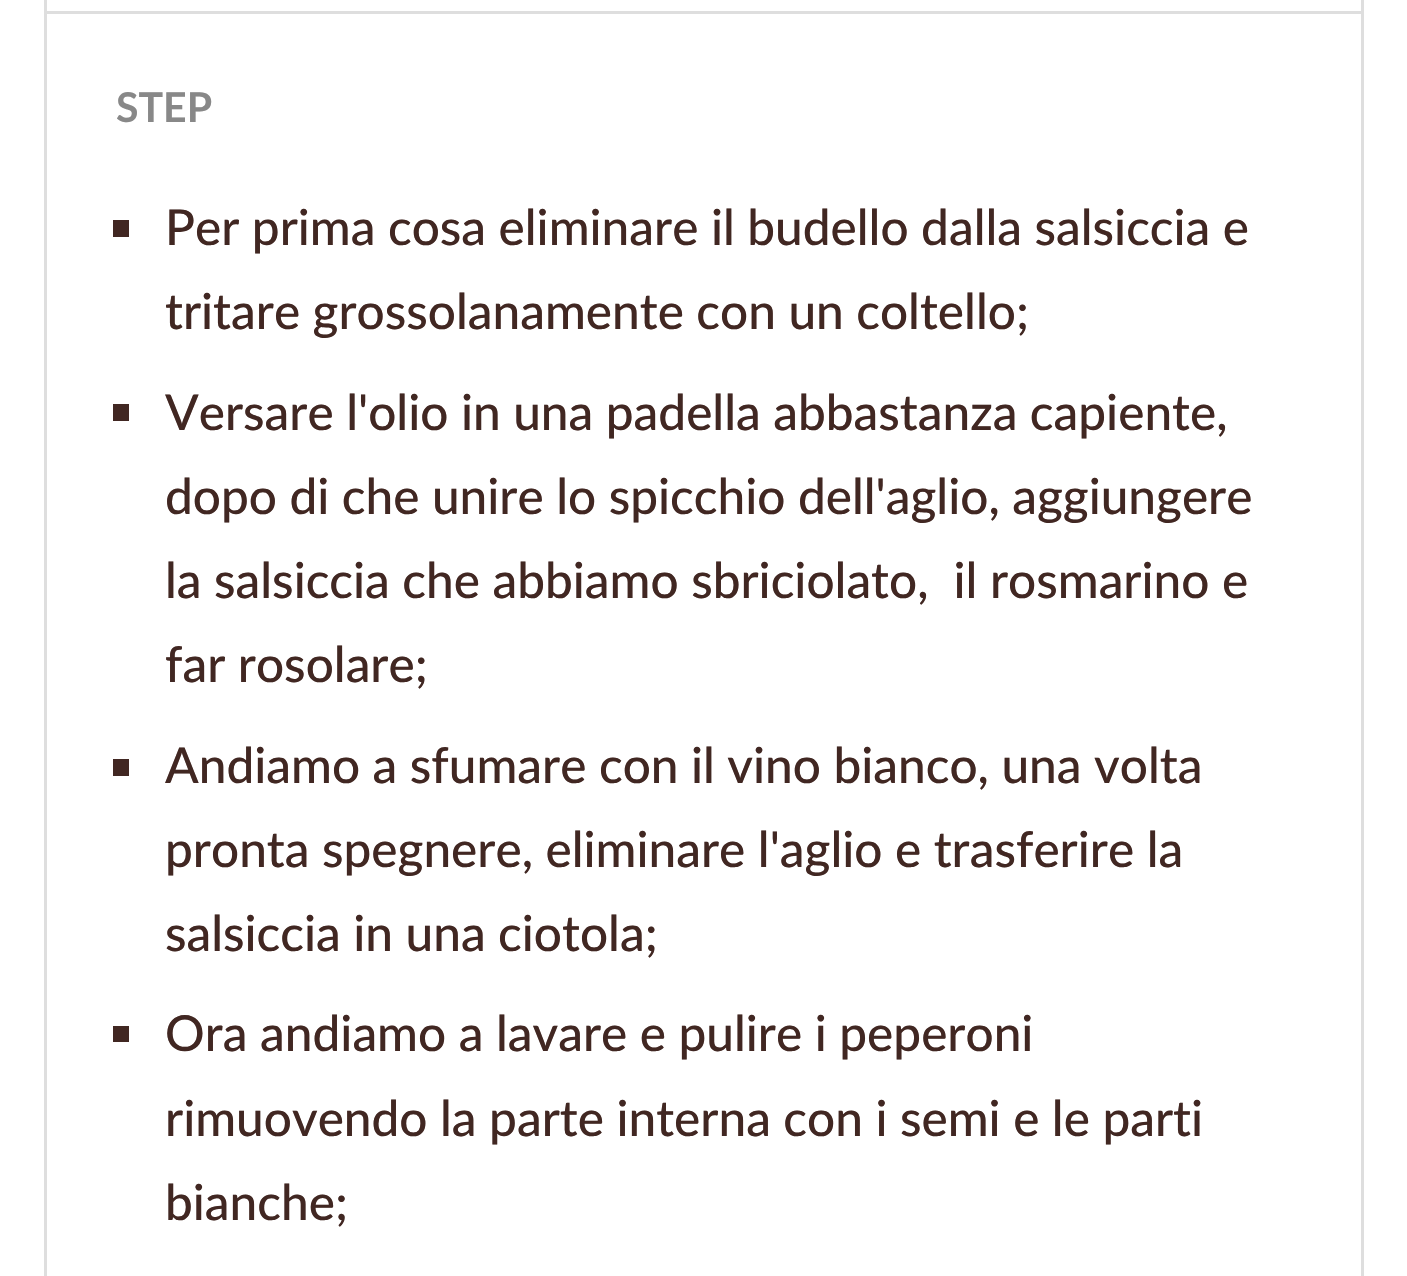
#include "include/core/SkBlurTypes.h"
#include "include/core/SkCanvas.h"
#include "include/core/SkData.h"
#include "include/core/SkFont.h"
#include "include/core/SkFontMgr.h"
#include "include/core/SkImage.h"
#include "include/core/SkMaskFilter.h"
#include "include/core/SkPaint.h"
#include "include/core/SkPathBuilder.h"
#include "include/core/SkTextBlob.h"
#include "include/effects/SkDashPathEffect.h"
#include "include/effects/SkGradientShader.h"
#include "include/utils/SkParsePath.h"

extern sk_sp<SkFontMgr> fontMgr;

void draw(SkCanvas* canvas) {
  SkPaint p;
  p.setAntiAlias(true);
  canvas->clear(SK_ColorWHITE);
  p.setStyle(SkPaint::kStroke_Style);
  p.setStrokeWidth(3);
  p.setColor(SkColorSetRGB(222, 222, 222));
  canvas->drawRect(SkRect::MakeLTRB(45.5f, -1.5f, 1362.5f, 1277.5f), p);
  p.setStyle(SkPaint::kFill_Style);
  canvas->drawRect(SkRect::MakeLTRB(47, 11, 1361, 14), p);
  p.setColor(SkColorSetRGB(65, 39, 34));
  canvas->drawRect(SkRect::MakeLTRB(113, 220, 129, 237), p);
  canvas->drawRect(SkRect::MakeLTRB(113, 404, 129, 421), p);
  canvas->drawRect(SkRect::MakeLTRB(113, 759, 129, 776), p);
  canvas->drawRect(SkRect::MakeLTRB(113, 1026, 129, 1042), p);
  SkFont font1(fontMgr->matchFamilyStyle("Lato", SkFontStyle::Bold()), 41);
  font1.setSubpixel(true);
  p.setColor(SkColorSetRGB(136, 136, 136));
  canvas->drawString("STEP", 116, 122, font1, p);
  SkFont font2(fontMgr->matchFamilyStyle("Lato", SkFontStyle(500, SkFontStyle::kNormal_Width, SkFontStyle::kUpright_Slant)), 49.5f);
  font2.setSubpixel(true);
  p.setColor(SkColorSetRGB(65, 39, 34));
  canvas->drawString("Per prima cosa eliminare il budello dalla salsiccia e", 165, 245, font2, p);
  canvas->drawString("tritare grossolanamente con un coltello;", 165, 329, font2, p);
  canvas->drawString("Versare l'olio in una padella abbastanza capiente,", 165, 430, font2, p);
  canvas->drawString("dopo di che unire lo spicchio dell'aglio, aggiungere", 165, 514, font2, p);
  canvas->drawString("la salsiccia che abbiamo sbriciolato,  il rosmarino e", 165, 598, font2, p);
  canvas->drawString("far rosolare;", 165, 682, font2, p);
  canvas->drawString("Andiamo a sfumare con il vino bianco, una volta", 165, 783, font2, p);
  canvas->drawString("pronta spegnere, eliminare l'aglio e trasferire la", 165, 867, font2, p);
  canvas->drawString("salsiccia in una ciotola;", 165, 951, font2, p);
  canvas->drawString("Ora andiamo a lavare e pulire i peperoni", 165, 1051, font2, p);
  canvas->drawString("rimuovendo la parte interna con i semi e le parti", 165, 1136, font2, p);
  canvas->drawString("bianche;", 165, 1220, font2, p);
}
